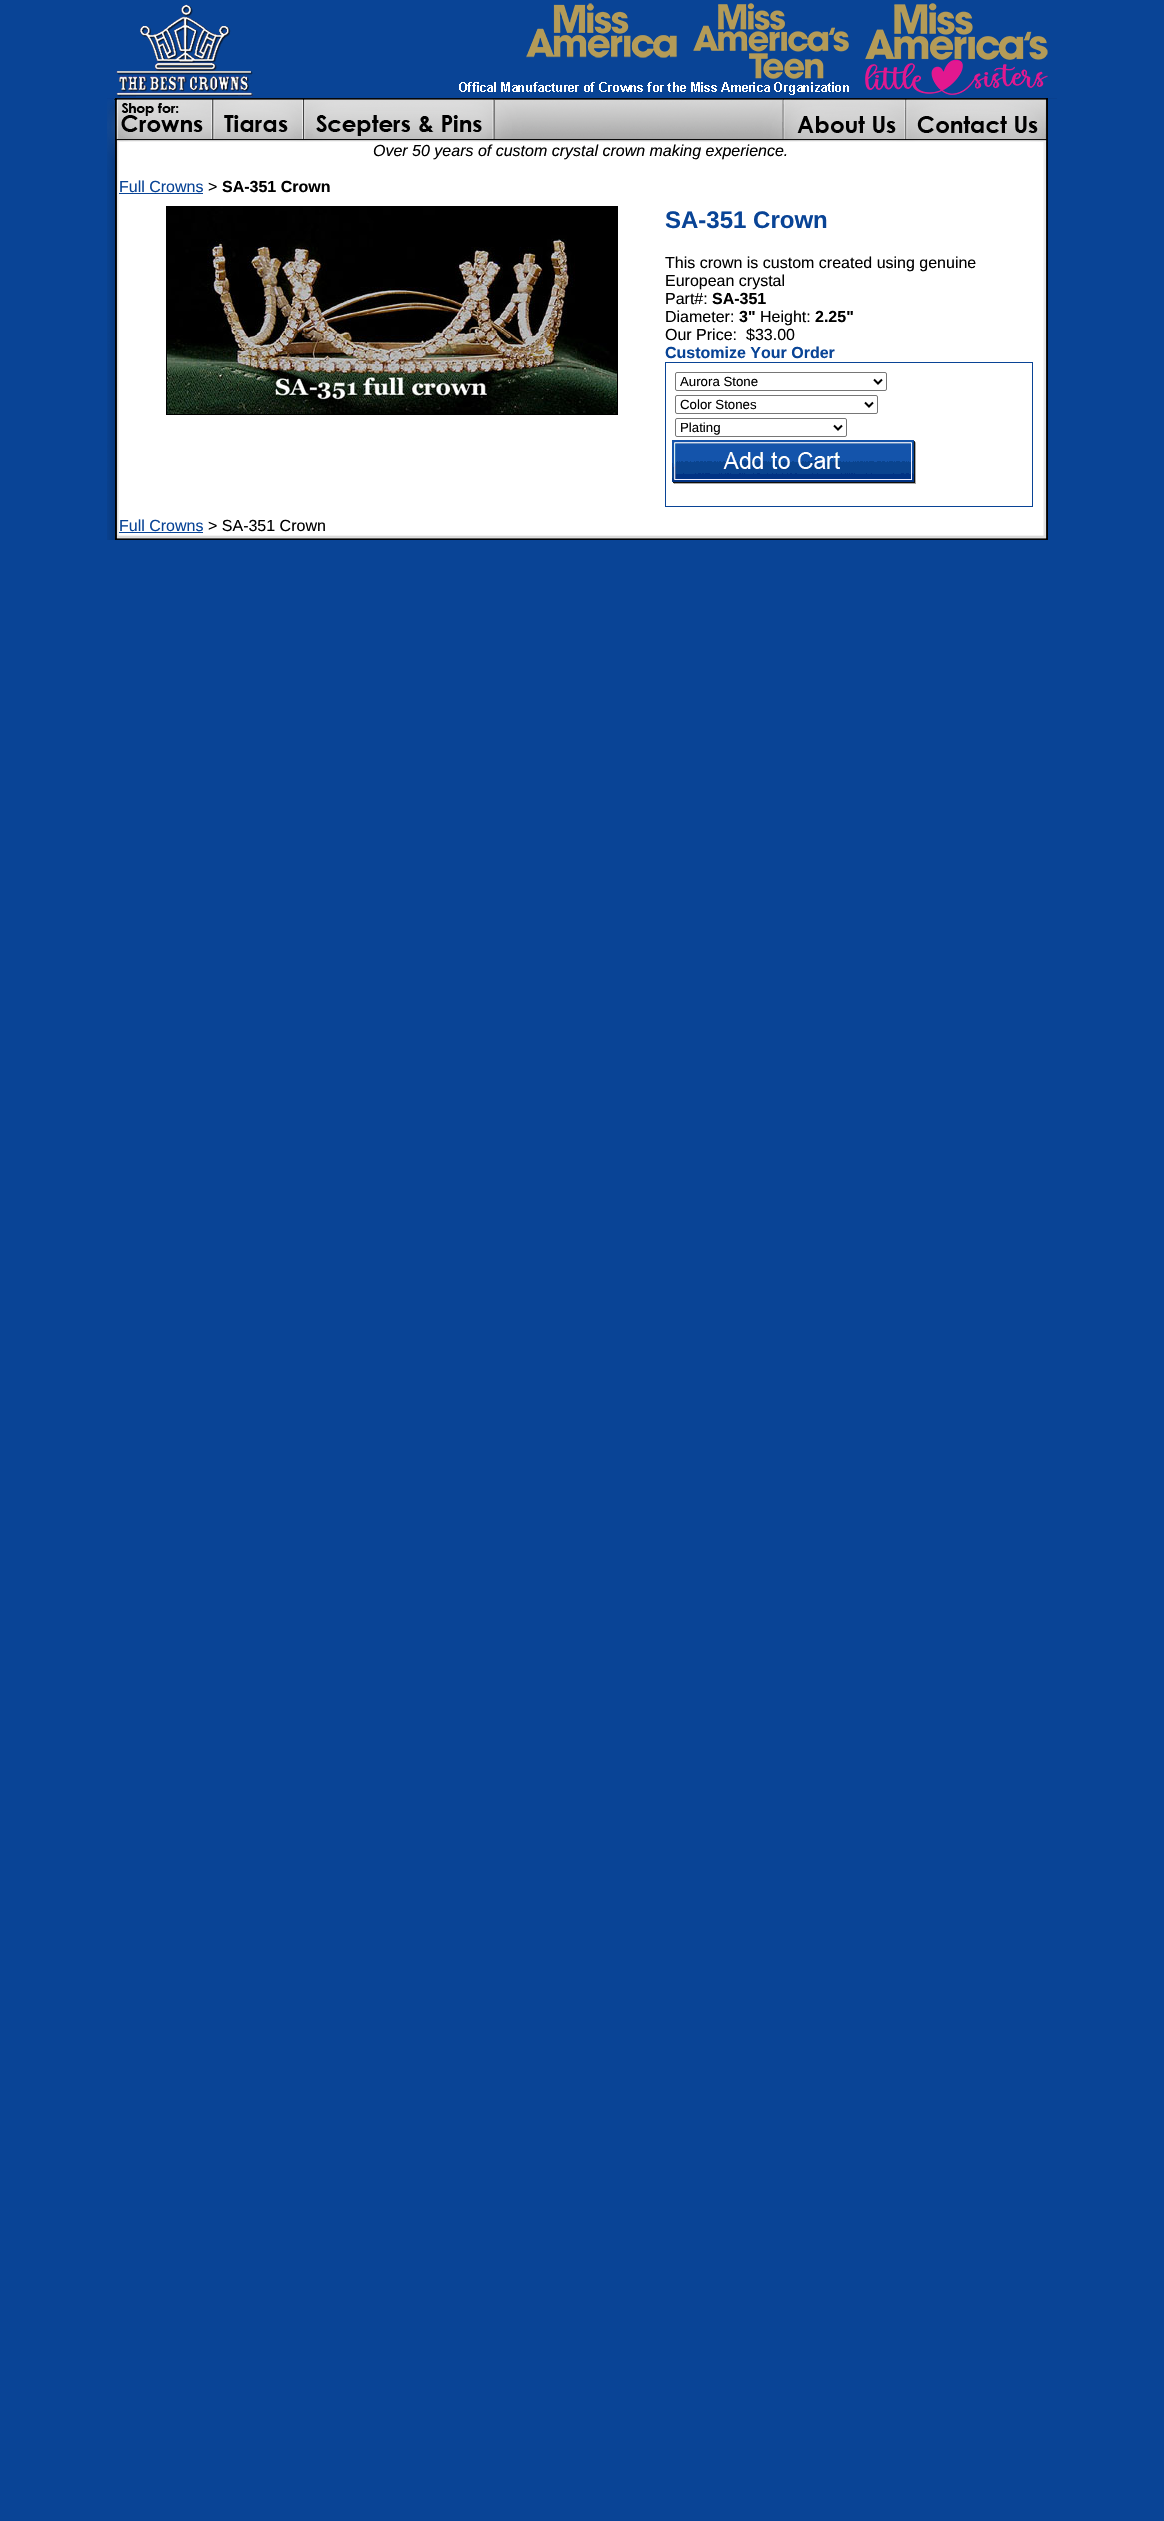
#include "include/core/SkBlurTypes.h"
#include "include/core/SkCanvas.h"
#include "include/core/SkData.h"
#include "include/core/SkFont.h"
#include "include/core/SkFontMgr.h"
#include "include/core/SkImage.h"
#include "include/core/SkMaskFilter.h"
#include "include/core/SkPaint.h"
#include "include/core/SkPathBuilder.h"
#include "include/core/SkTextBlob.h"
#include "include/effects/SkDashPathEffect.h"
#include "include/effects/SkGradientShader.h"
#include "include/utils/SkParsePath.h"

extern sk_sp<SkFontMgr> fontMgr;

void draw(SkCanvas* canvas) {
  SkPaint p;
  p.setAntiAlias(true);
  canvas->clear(SkColorSetRGB(9, 68, 150));
  canvas->drawImageRect(SkImages::DeferredFromEncodedData(SkData::MakeFromFileName("images/1.png")), SkRect::MakeLTRB(116, 4, 254, 97), SkSamplingOptions());
  canvas->drawImageRect(SkImages::DeferredFromEncodedData(SkData::MakeFromFileName("images/2.png")), SkRect::MakeLTRB(459, 3, 1048, 95), SkSamplingOptions());
  canvas->drawImageRect(SkImages::DeferredFromEncodedData(SkData::MakeFromFileName("images/3.png")), SkRect::MakeLTRB(107, 98, 115, 540), SkSamplingOptions());
  canvas->drawImageRect(SkImages::DeferredFromEncodedData(SkData::MakeFromFileName("images/4.png")), SkRect::MakeLTRB(115, 98, 213, 140), SkSamplingOptions());
  canvas->drawImageRect(SkImages::DeferredFromEncodedData(SkData::MakeFromFileName("images/5.png")), SkRect::MakeLTRB(213, 98, 303, 99), SkSamplingOptions());
  canvas->drawImageRect(SkImages::DeferredFromEncodedData(SkData::MakeFromFileName("images/6.png")), SkRect::MakeLTRB(213, 99, 303, 140), SkSamplingOptions());
  canvas->drawImageRect(SkImages::DeferredFromEncodedData(SkData::MakeFromFileName("images/7.png")), SkRect::MakeLTRB(303, 98, 494, 140), SkSamplingOptions());
  canvas->drawImageRect(SkImages::DeferredFromEncodedData(SkData::MakeFromFileName("images/8.png")), SkRect::MakeLTRB(303, 99, 494, 139), SkSamplingOptions());
  canvas->drawImageRect(SkImages::DeferredFromEncodedData(SkData::MakeFromFileName("images/9.png")), SkRect::MakeLTRB(494, 98, 783, 140), SkSamplingOptions());
  canvas->drawImageRect(SkImages::DeferredFromEncodedData(SkData::MakeFromFileName("images/10.png")), SkRect::MakeLTRB(783, 98, 905, 99), SkSamplingOptions());
  canvas->drawImageRect(SkImages::DeferredFromEncodedData(SkData::MakeFromFileName("images/11.png")), SkRect::MakeLTRB(783, 99, 905, 140), SkSamplingOptions());
  canvas->drawImageRect(SkImages::DeferredFromEncodedData(SkData::MakeFromFileName("images/12.png")), SkRect::MakeLTRB(905, 98, 1048, 140), SkSamplingOptions());
  p.setColor(SkColorSetRGB(9, 64, 143));
  canvas->drawRect(SkRect::MakeLTRB(1048, 98, 1057, 99), p);
  canvas->drawImageRect(SkImages::DeferredFromEncodedData(SkData::MakeFromFileName("images/13.png")), SkRect::MakeLTRB(115, 140, 1048, 142), SkSamplingOptions());
  canvas->drawImageRect(SkImages::DeferredFromEncodedData(SkData::MakeFromFileName("images/14.png")), SkRect::MakeLTRB(115, 142, 119, 535), SkSamplingOptions());
  p.setColor(SK_ColorWHITE);
  canvas->drawRect(SkRect::MakeLTRB(119, 142, 1043, 535), p);
  p.setColor(SkColorSetRGB(9, 68, 150));
  canvas->drawRect(SkRect::MakeLTRB(119, 193, 203, 194), p);
  p.setStyle(SkPaint::kStroke_Style);
  p.setStrokeWidth(1);
  p.setColor(SK_ColorBLACK);
  canvas->drawRect(SkRect::MakeLTRB(166.5f, 206.5f, 617.5f, 414.5f), p);
  canvas->drawImageRect(SkImages::DeferredFromEncodedData(SkData::MakeFromFileName("images/15.png")), SkRect::MakeLTRB(167, 207, 617, 414), SkSamplingOptions());
  p.setStyle(SkPaint::kFill_Style);
  p.setColor(SkColorSetRGB(9, 68, 150));
  canvas->drawRect(SkRect::MakeLTRB(665, 362, 1033, 507), p);
  p.setColor(SK_ColorWHITE);
  canvas->drawRect(SkRect::MakeLTRB(666, 363, 1032, 506), p);
  p.setStyle(SkPaint::kStroke_Style);
  p.setColor(SkColorSetRGB(118, 118, 118));
  canvas->drawRoundRect(SkRect::MakeLTRB(675.5f, 372.5f, 886.5f, 390.5f), 1.5f, 1.5f, p);
  p.setStrokeWidth(2);
  p.setColor(SK_ColorBLACK);
  canvas->drawPath(SkPathBuilder().moveTo(874, 379.5f).lineTo(878, 383.5f).lineTo(882, 379.5f).detach(), p);
  p.setStrokeWidth(1);
  p.setColor(SkColorSetRGB(118, 118, 118));
  canvas->drawRoundRect(SkRect::MakeLTRB(675.5f, 395.5f, 877.5f, 413.5f), 1.5f, 1.5f, p);
  p.setStrokeWidth(2);
  p.setColor(SK_ColorBLACK);
  canvas->drawPath(SkPathBuilder().moveTo(865, 402.5f).lineTo(869, 406.5f).lineTo(873, 402.5f).detach(), p);
  p.setStrokeWidth(1);
  p.setColor(SkColorSetRGB(118, 118, 118));
  canvas->drawRoundRect(SkRect::MakeLTRB(675.5f, 418.5f, 846.5f, 436.5f), 1.5f, 1.5f, p);
  p.setStrokeWidth(2);
  p.setColor(SK_ColorBLACK);
  canvas->drawPath(SkPathBuilder().moveTo(834, 425.5f).lineTo(838, 429.5f).lineTo(842, 425.5f).detach(), p);
  canvas->drawImageRect(SkImages::DeferredFromEncodedData(SkData::MakeFromFileName("images/16.png")), SkRect::MakeLTRB(672, 440, 916, 484), SkSamplingOptions());
  p.setStyle(SkPaint::kFill_Style);
  p.setColor(SkColorSetRGB(9, 68, 150));
  canvas->drawRect(SkRect::MakeLTRB(119, 532, 203, 533), p);
  canvas->drawImageRect(SkImages::DeferredFromEncodedData(SkData::MakeFromFileName("images/17.png")), SkRect::MakeLTRB(1043, 142, 1048, 535), SkSamplingOptions());
  canvas->drawImageRect(SkImages::DeferredFromEncodedData(SkData::MakeFromFileName("images/18.png")), SkRect::MakeLTRB(115, 535, 1048, 540), SkSamplingOptions());
  SkFont font1(fontMgr->matchFamilyStyle("Liberation Sans", SkFontStyle::Italic()), 16);
  font1.setSubpixel(true);
  p.setColor(SK_ColorBLACK);
  canvas->drawString("Over 50 years of custom crystal crown making experience.", 373, 156, font1, p);
  SkFont font2(fontMgr->matchFamilyStyle("Liberation Sans", SkFontStyle::Normal()), 16);
  font2.setSubpixel(true);
  p.setColor(SkColorSetRGB(9, 68, 150));
  canvas->drawString("Full Crowns", 119, 192, font2, p);
  p.setColor(SK_ColorBLACK);
  canvas->drawString(">", 208, 192, font2, p);
  SkFont font3(fontMgr->matchFamilyStyle("Liberation Sans", SkFontStyle::Bold()), 16);
  font3.setSubpixel(true);
  canvas->drawString("SA-351 Crown", 222, 192, font3, p);
  SkFont font4(fontMgr->matchFamilyStyle("Liberation Sans", SkFontStyle::Bold()), 24);
  font4.setSubpixel(true);
  p.setColor(SkColorSetRGB(9, 68, 150));
  canvas->drawString("SA-351 Crown", 665, 228, font4, p);
  p.setColor(SK_ColorBLACK);
  canvas->drawString("This crown is custom created using genuine", 665, 268, font2, p);
  canvas->drawString("European crystal", 665, 286, font2, p);
  canvas->drawString("Part#:", 665, 304, font2, p);
  canvas->drawString("SA-351", 712, 304, font3, p);
  canvas->drawString("Diameter:", 665, 322, font2, p);
  canvas->drawString("3\"", 739, 322, font3, p);
  canvas->drawString("Height:", 760, 322, font2, p);
  canvas->drawString("2.25\"", 815, 322, font3, p);
  canvas->drawString("Our Price:", 665, 340, font2, p);
  canvas->drawString("$33.00", 746, 340, font2, p);
  p.setColor(SkColorSetRGB(9, 68, 150));
  canvas->drawString("Customize Your Order", 665, 358, font3, p);
  SkFont font5(fontMgr->matchFamilyStyle("Liberation Sans", SkFontStyle::Normal()), 13.25f);
  font5.setSubpixel(true);
  p.setColor(SK_ColorBLACK);
  canvas->drawString("Aurora Stone", 680, 386, font5, p);
  canvas->drawString("Color Stones", 680, 409, font5, p);
  canvas->drawString("Plating", 680, 432, font5, p);
  p.setColor(SkColorSetRGB(9, 68, 150));
  canvas->drawString("Full Crowns", 119, 531, font2, p);
  p.setColor(SK_ColorBLACK);
  canvas->drawString("> SA-351 Crown", 208, 531, font2, p);
}
